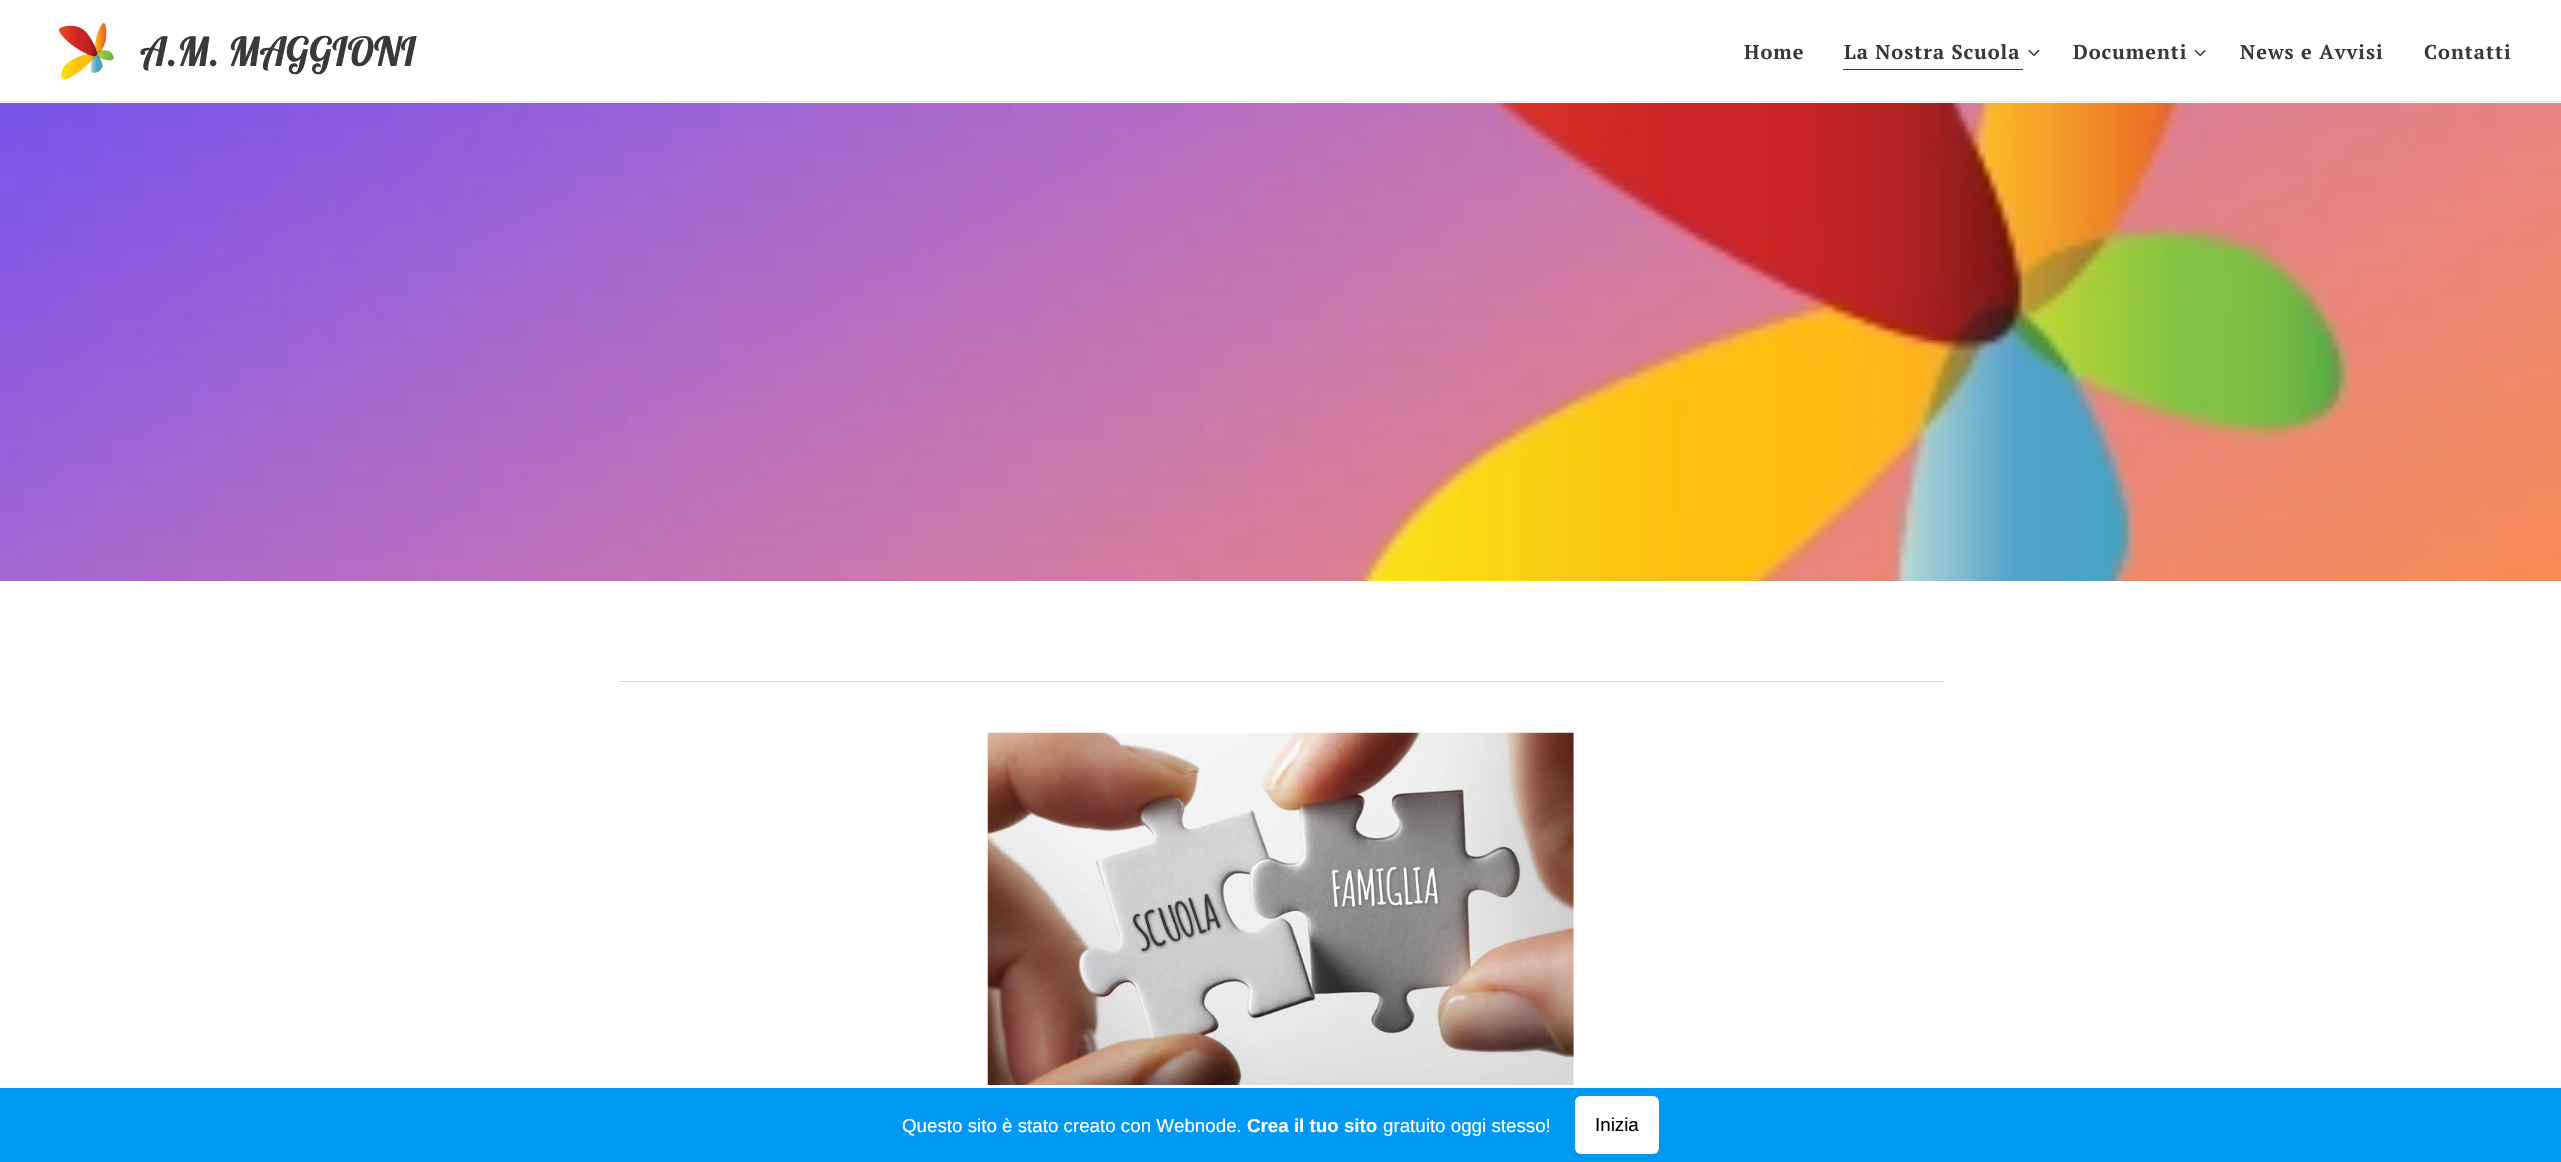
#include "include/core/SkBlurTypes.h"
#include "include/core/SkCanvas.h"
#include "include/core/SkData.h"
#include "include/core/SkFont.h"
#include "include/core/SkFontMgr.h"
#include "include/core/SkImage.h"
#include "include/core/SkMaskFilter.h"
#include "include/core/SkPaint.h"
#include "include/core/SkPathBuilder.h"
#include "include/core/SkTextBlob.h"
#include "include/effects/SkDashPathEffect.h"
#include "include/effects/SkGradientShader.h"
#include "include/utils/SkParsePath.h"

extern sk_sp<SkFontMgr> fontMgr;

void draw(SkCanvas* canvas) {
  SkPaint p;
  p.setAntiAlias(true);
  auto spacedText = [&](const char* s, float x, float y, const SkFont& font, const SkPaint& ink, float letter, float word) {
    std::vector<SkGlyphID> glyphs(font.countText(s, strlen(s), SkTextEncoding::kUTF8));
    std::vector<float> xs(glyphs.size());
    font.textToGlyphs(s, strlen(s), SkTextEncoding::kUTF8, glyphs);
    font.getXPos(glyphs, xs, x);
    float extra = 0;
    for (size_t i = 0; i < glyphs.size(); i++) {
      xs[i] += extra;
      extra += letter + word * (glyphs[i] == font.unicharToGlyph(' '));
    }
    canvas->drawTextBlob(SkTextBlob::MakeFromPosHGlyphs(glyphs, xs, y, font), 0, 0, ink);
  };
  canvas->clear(SK_ColorWHITE);
  canvas->drawImageRect(SkImages::DeferredFromEncodedData(SkData::MakeFromFileName("images/1.png")), SkRect::MakeLTRB(59, 22, 114, 80), SkSamplingOptions());
  p.setColor(SkColorSetRGB(57, 57, 57));
  canvas->drawRect(SkRect::MakeLTRB(1843, 69, 2023, 70), p);
  canvas->drawImageRect(SkImages::DeferredFromEncodedData(SkData::MakeFromFileName("images/2.png")), SkRect::MakeLTRB(2028, 49, 2040, 57), SkSamplingOptions());
  canvas->drawImageRect(SkImages::DeferredFromEncodedData(SkData::MakeFromFileName("images/3.png")), SkRect::MakeLTRB(2194, 49, 2206, 57), SkSamplingOptions());
  p.setColor(SkColorSetRGB(232, 232, 232));
  canvas->drawRect(SkRect::MakeLTRB(0, 101, 2561, 102), p);
  canvas->drawImageRect(SkImages::DeferredFromEncodedData(SkData::MakeFromFileName("images/4.png")), SkRect::MakeLTRB(0, 103, 2561, 581), SkSamplingOptions());
  p.setColor(SkColorSetRGB(212, 212, 212));
  canvas->drawRect(SkRect::MakeLTRB(619, 681, 1944, 682), p);
  canvas->drawImageRect(SkImages::DeferredFromEncodedData(SkData::MakeFromFileName("images/5.png")), SkRect::MakeLTRB(987, 732, 1574, 1085), SkSamplingOptions());
  p.setColor(SkColorSetRGB(0, 151, 245));
  canvas->drawRect(SkRect::MakeLTRB(0, 1088, 2561, 1162), p);
  p.setColor(SK_ColorWHITE);
  canvas->drawRoundRect(SkRect::MakeLTRB(1575, 1096, 1659, 1154), 6, 6, p);
  SkFont font1(fontMgr->matchFamilyStyle("Lobster", SkFontStyle::Normal()), 40);
  font1.setSubpixel(true);
  p.setColor(SkColorSetRGB(57, 57, 57));
  canvas->drawString("A.M. MAGGIONI", 140, 66, font1, p);
  SkFont font2(fontMgr->matchFamilyStyle("PT Serif", SkFontStyle::Bold()), 20);
  font2.setSubpixel(true);
  spacedText("Home", 1744, 59, font2, p, 1, 0);
  spacedText("La Nostra Scuola", 1844, 59, font2, p, 1, 0);
  spacedText("Documenti", 2073, 59, font2, p, 1, 0);
  spacedText("News e Avvisi", 2240, 59, font2, p, 1, 0);
  spacedText("Contatti", 2424, 59, font2, p, 1, 0);
  SkFont font3(fontMgr->matchFamilyStyle("Liberation Sans", SkFontStyle::Normal()), 18.75f);
  font3.setSubpixel(true);
  p.setColor(SK_ColorWHITE);
  canvas->drawString("Questo sito è stato creato con Webnode.", 902, 1132, font3, p);
  SkFont font4(fontMgr->matchFamilyStyle("Liberation Sans", SkFontStyle::Bold()), 18.75f);
  font4.setSubpixel(true);
  canvas->drawString("Crea il tuo sito", 1247, 1132, font4, p);
  canvas->drawString("gratuito oggi stesso!", 1383, 1132, font3, p);
  p.setColor(SK_ColorBLACK);
  canvas->drawString("Inizia", 1595, 1131, font3, p);
}
